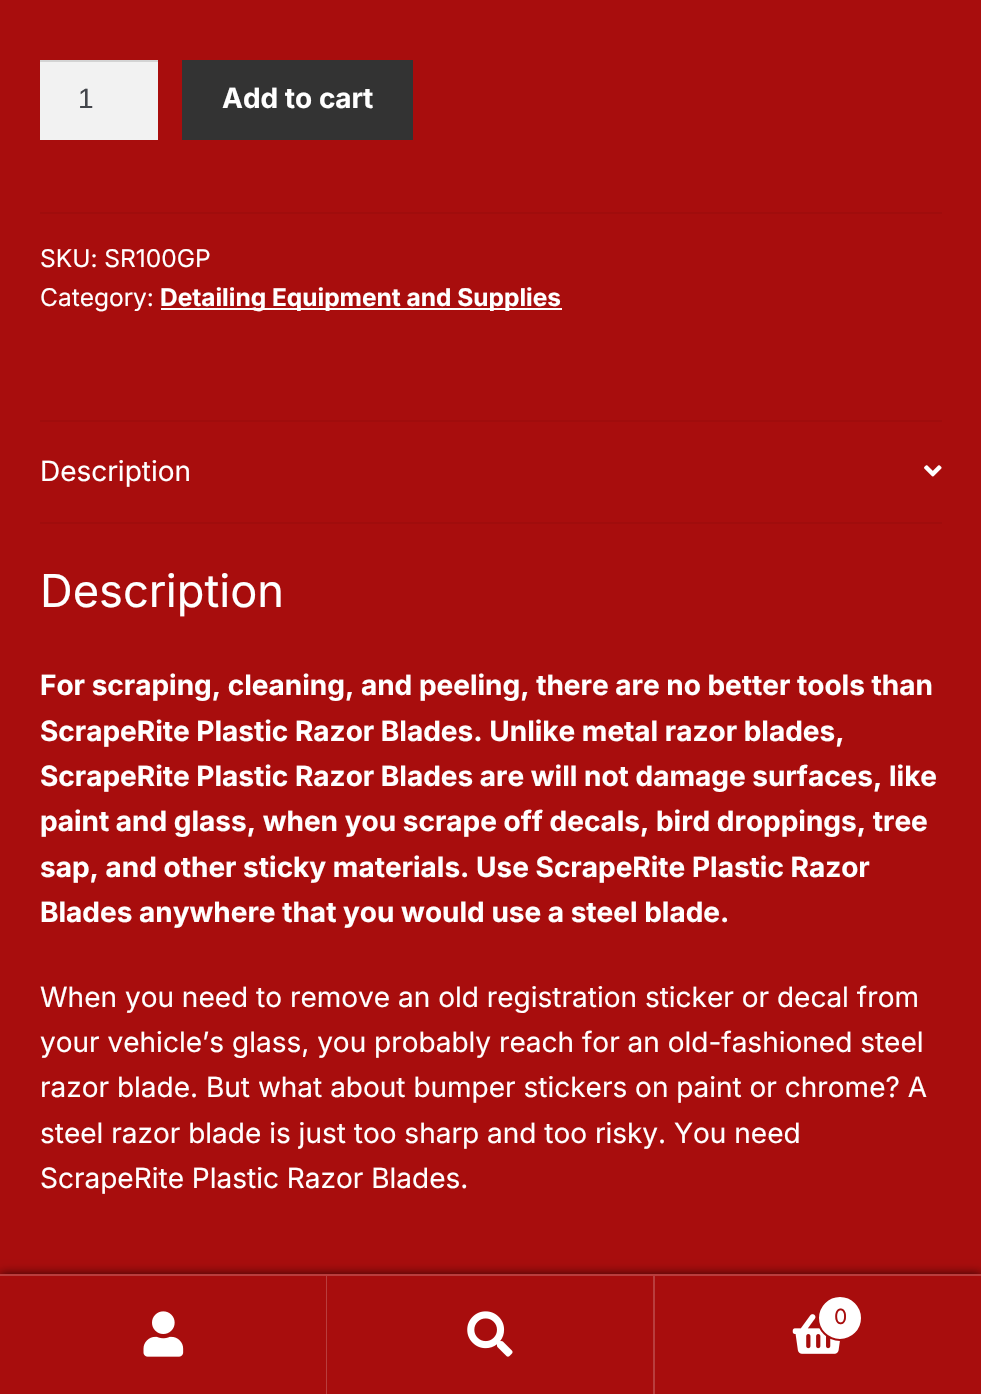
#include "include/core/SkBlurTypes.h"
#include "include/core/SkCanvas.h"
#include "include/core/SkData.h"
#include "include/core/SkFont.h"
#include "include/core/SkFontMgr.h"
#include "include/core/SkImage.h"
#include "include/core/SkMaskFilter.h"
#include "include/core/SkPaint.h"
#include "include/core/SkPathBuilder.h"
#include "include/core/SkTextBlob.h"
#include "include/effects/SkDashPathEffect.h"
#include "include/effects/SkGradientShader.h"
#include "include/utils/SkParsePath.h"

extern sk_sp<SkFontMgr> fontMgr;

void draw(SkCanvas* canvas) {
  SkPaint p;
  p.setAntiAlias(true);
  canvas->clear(SkColorSetRGB(168, 13, 13));
  p.setColor(SkColorSetRGB(242, 242, 242));
  canvas->drawRect(SkRect::MakeLTRB(40, 62, 158, 140), p);
  p.setColor(SkColorSetRGB(212, 212, 212));
  canvas->drawRect(SkRect::MakeLTRB(40, 60, 158, 62), p);
  p.setColor(SkColorSetRGB(51, 51, 51));
  canvas->drawRect(SkRect::MakeLTRB(182, 60, 413, 140), p);
  p.setColor(SkColorSetRGB(160, 12, 12));
  canvas->drawRect(SkRect::MakeLTRB(40, 212, 942, 214), p);
  p.setColor(SK_ColorWHITE);
  canvas->drawRect(SkRect::MakeLTRB(161, 308, 562, 310), p);
  p.setColor(SkColorSetRGB(160, 12, 12));
  canvas->drawRect(SkRect::MakeLTRB(40, 420, 942, 422), p);
  canvas->drawRect(SkRect::MakeLTRB(40, 522, 942, 524), p);
  canvas->drawImageRect(SkImages::DeferredFromEncodedData(SkData::MakeFromFileName("images/1.png")), SkRect::MakeLTRB(924, 465, 942, 477), SkSamplingOptions());
  p.setColor(SkColorSetARGB(179, 0, 0, 0));
  p.setMaskFilter(SkMaskFilter::MakeBlur(kNormal_SkBlurStyle, 5));
  canvas->drawRect(SkRect::MakeLTRB(0, 1274, 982, 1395), p);
  p.setMaskFilter(nullptr);
  p.setColor(SkColorSetRGB(185, 61, 61));
  canvas->drawRect(SkRect::MakeLTRB(0, 1274, 981, 1276), p);
  p.setColor(SkColorSetRGB(168, 13, 13));
  canvas->drawRect(SkRect::MakeLTRB(0, 1276, 653, 1394), p);
  p.setColor(SkColorSetARGB(51, 255, 255, 255));
  canvas->drawRect(SkRect::MakeLTRB(326, 1276, 327, 1394), p);
  canvas->drawImageRect(SkImages::DeferredFromEncodedData(SkData::MakeFromFileName("images/2.png")), SkRect::MakeLTRB(143, 1311, 184, 1357), SkSamplingOptions());
  p.setColor(SkColorSetRGB(185, 61, 61));
  canvas->drawRect(SkRect::MakeLTRB(653, 1276, 655, 1394), p);
  canvas->drawImageRect(SkImages::DeferredFromEncodedData(SkData::MakeFromFileName("images/3.png")), SkRect::MakeLTRB(467, 1311, 513, 1357), SkSamplingOptions());
  p.setColor(SkColorSetRGB(168, 13, 13));
  canvas->drawRect(SkRect::MakeLTRB(655, 1276, 981, 1394), p);
  canvas->drawImageRect(SkImages::DeferredFromEncodedData(SkData::MakeFromFileName("images/4.png")), SkRect::MakeLTRB(792, 1314, 840, 1354), SkSamplingOptions());
  p.setColor(SK_ColorWHITE);
  canvas->drawCircle(840, 1318, 22, p);
  p.setStyle(SkPaint::kStroke_Style);
  p.setStrokeWidth(2);
  p.setColor(SkColorSetRGB(168, 13, 13));
  canvas->drawCircle(840, 1318, 22, p);
  SkFont font1(fontMgr->matchFamilyStyle("Liberation Sans", SkFontStyle::Normal()), 28);
  font1.setSubpixel(true);
  p.setStyle(SkPaint::kFill_Style);
  p.setColor(SkColorSetRGB(67, 69, 75));
  canvas->drawString("1", 78, 108, font1, p);
  SkFont font2(fontMgr->matchFamilyStyle("Inter", SkFontStyle::Bold()), 28);
  font2.setSubpixel(true);
  p.setColor(SK_ColorWHITE);
  canvas->drawString("Add to cart", 222, 108, font2, p);
  SkFont font3(fontMgr->matchFamilyStyle("Inter", SkFontStyle::Normal()), 24.5f);
  font3.setSubpixel(true);
  canvas->drawString("SKU: SR100GP", 40, 267, font3, p);
  canvas->drawString("Category:", 40, 306, font3, p);
  SkFont font4(fontMgr->matchFamilyStyle("Inter", SkFontStyle::Bold()), 24.5f);
  font4.setSubpixel(true);
  canvas->drawString("Detailing Equipment and Supplies", 160, 306, font4, p);
  SkFont font5(fontMgr->matchFamilyStyle("Inter", SkFontStyle::Normal()), 28);
  font5.setSubpixel(true);
  canvas->drawString("Description", 40, 481, font5, p);
  SkFont font6(fontMgr->matchFamilyStyle("Inter", SkFontStyle::Normal()), 45.25f);
  font6.setSubpixel(true);
  canvas->drawString("Description", 40, 607, font6, p);
  canvas->drawString("For scraping, cleaning, and peeling, there are no better tools than", 40, 695, font2, p);
  canvas->drawString("ScrapeRite Plastic Razor Blades. Unlike metal razor blades,", 40, 741, font2, p);
  canvas->drawString("ScrapeRite Plastic Razor Blades are will not damage surfaces, like", 40, 786, font2, p);
  canvas->drawString("paint and glass, when you scrape off decals, bird droppings, tree", 40, 831, font2, p);
  canvas->drawString("sap, and other sticky materials. Use ScrapeRite Plastic Razor", 40, 877, font2, p);
  canvas->drawString("Blades anywhere that you would use a steel blade.", 40, 922, font2, p);
  canvas->drawString("When you need to remove an old registration sticker or decal from", 40, 1007, font5, p);
  canvas->drawString("your vehicle’s glass, you probably reach for an old-fashioned steel", 40, 1052, font5, p);
  canvas->drawString("razor blade. But what about bumper stickers on paint or chrome? A", 40, 1097, font5, p);
  canvas->drawString("steel razor blade is just too sharp and too risky. You need", 40, 1143, font5, p);
  canvas->drawString("ScrapeRite Plastic Razor Blades.", 40, 1188, font5, p);
  SkFont font7(fontMgr->matchFamilyStyle("Inter", SkFontStyle::Normal()), 21);
  font7.setSubpixel(true);
  p.setColor(SkColorSetRGB(168, 13, 13));
  canvas->drawString("0", 834, 1324, font7, p);
}
